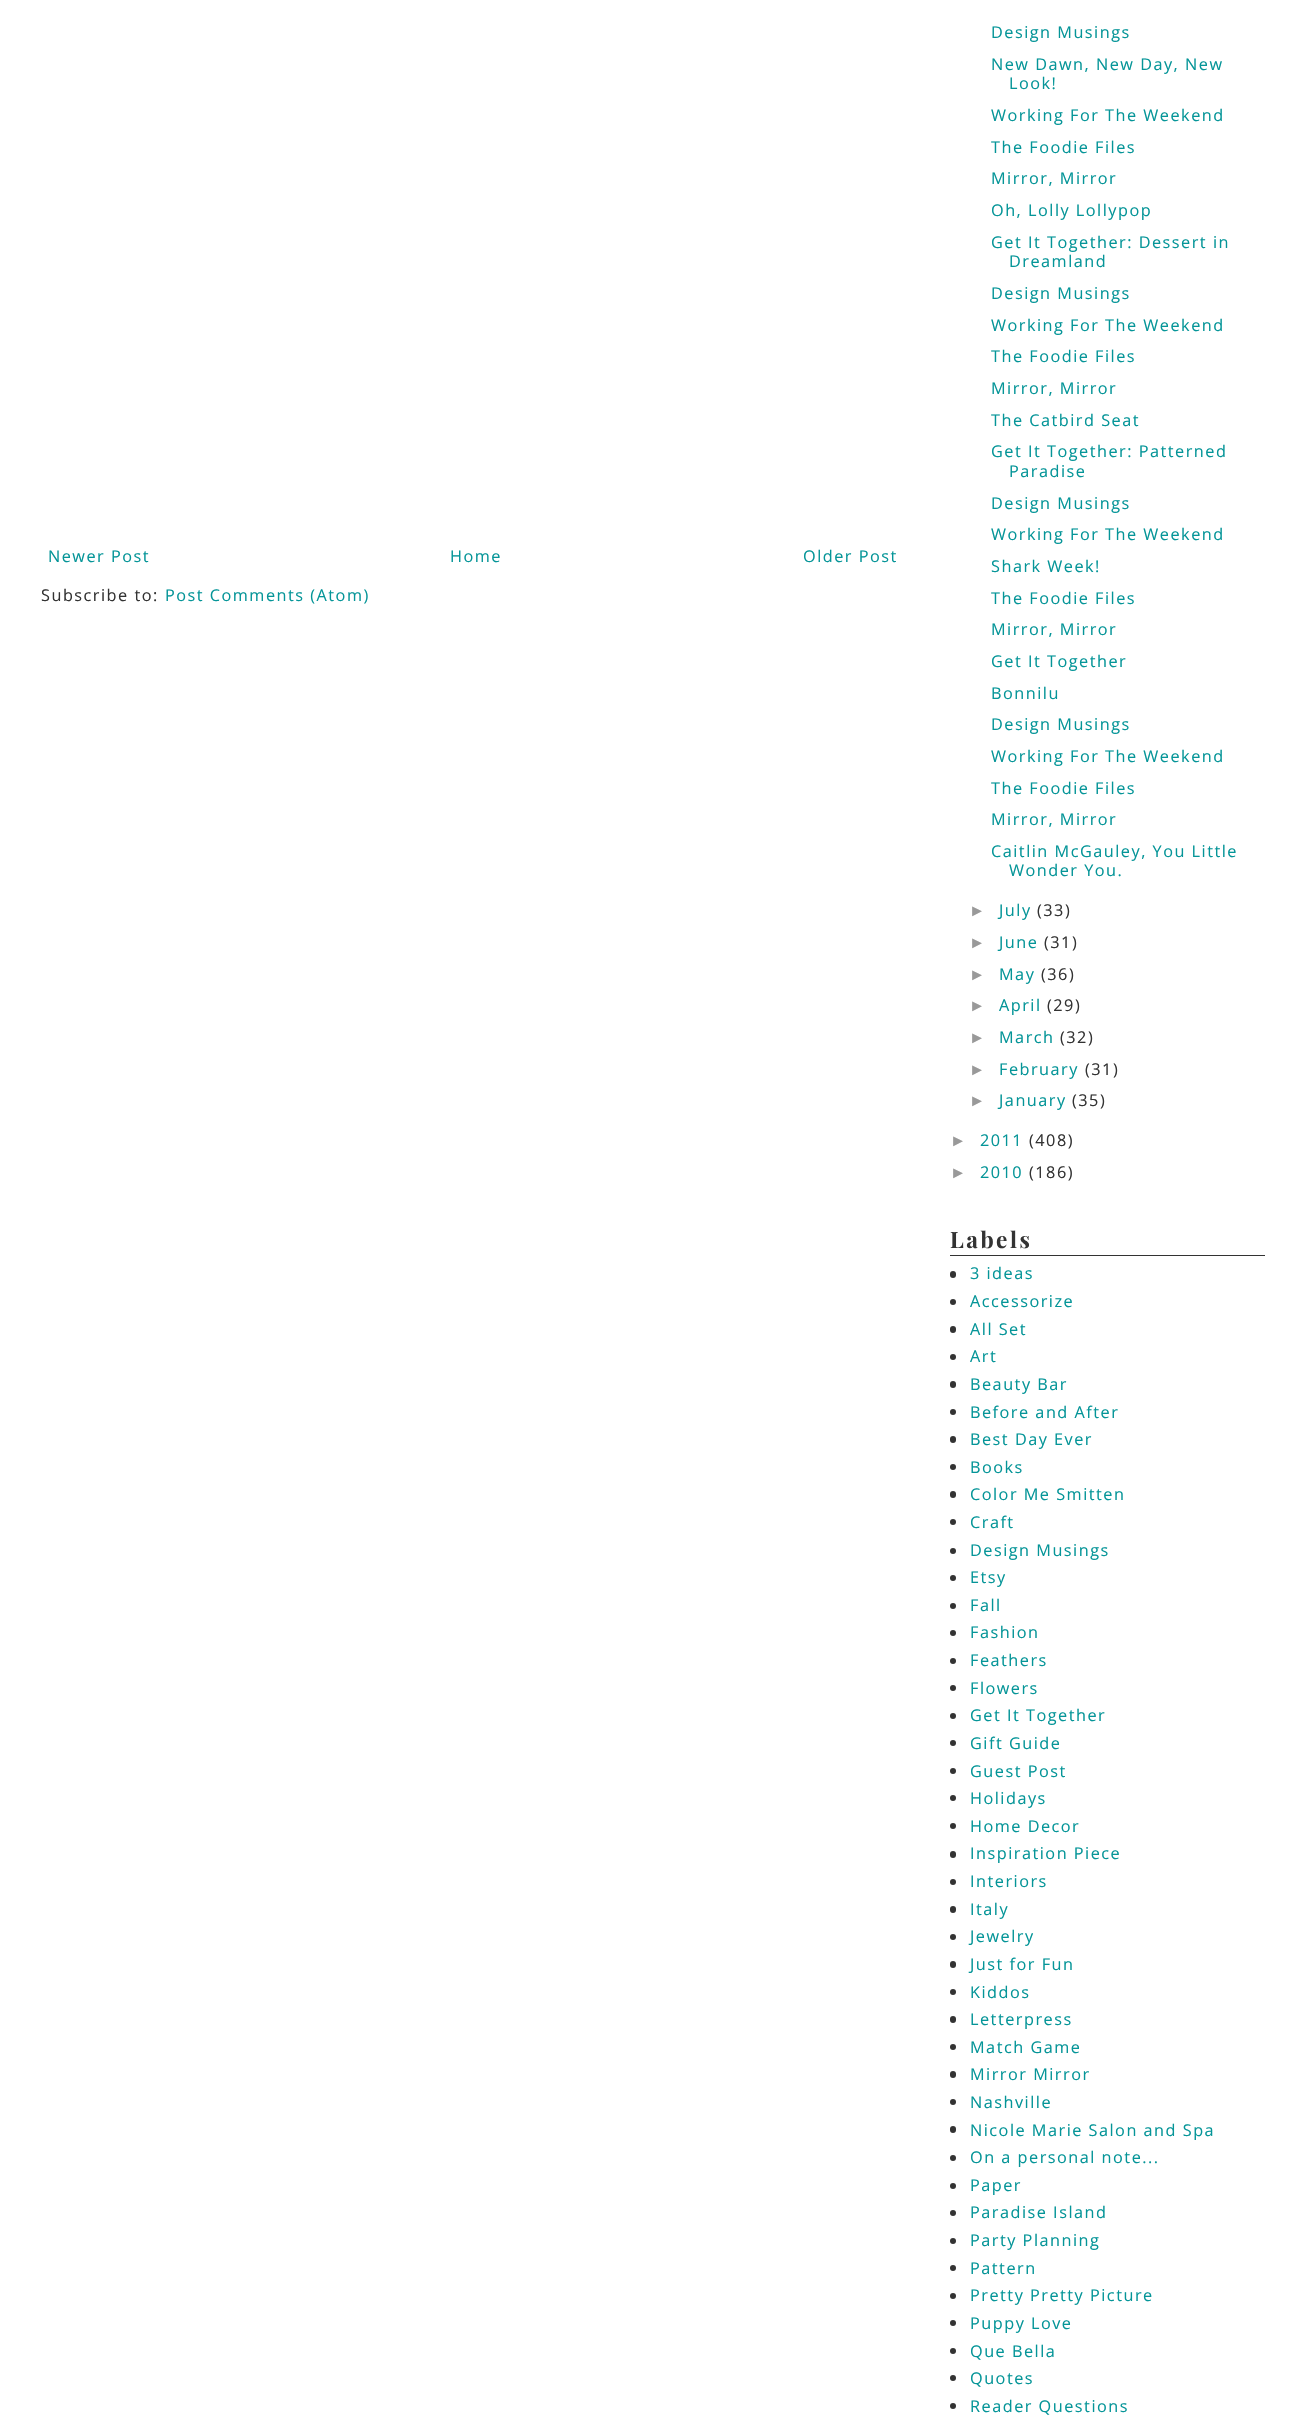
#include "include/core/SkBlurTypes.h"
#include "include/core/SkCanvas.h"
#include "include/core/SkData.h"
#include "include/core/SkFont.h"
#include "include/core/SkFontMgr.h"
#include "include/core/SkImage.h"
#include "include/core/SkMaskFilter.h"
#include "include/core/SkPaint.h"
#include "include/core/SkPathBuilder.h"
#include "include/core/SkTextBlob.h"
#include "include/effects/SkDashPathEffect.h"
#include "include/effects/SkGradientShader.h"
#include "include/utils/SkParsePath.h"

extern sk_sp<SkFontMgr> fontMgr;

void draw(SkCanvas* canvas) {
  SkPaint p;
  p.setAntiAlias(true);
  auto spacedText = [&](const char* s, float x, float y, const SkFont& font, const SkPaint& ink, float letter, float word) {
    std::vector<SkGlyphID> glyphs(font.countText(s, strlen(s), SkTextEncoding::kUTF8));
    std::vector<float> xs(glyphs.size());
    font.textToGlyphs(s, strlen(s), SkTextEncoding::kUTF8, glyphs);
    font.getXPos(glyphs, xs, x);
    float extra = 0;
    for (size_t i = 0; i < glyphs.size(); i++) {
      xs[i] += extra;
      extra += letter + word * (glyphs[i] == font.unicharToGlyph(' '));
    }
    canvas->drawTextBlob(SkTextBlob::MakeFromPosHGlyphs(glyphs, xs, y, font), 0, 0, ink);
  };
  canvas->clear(SK_ColorWHITE);
  p.setColor(SkColorSetRGB(51, 51, 51));
  canvas->drawRect(SkRect::MakeLTRB(950, 1255, 1265, 1256), p);
  canvas->drawRoundRect(SkRect::MakeLTRB(950, 1271, 956, 1278), 3, 3, p);
  canvas->drawCircle(953, 1302, 3, p);
  canvas->drawRoundRect(SkRect::MakeLTRB(950, 1326, 956, 1333), 3, 3, p);
  canvas->drawCircle(953, 1357, 3, p);
  canvas->drawRoundRect(SkRect::MakeLTRB(950, 1381, 956, 1388), 3, 3, p);
  canvas->drawCircle(953, 1412, 3, p);
  canvas->drawRoundRect(SkRect::MakeLTRB(950, 1436, 956, 1443), 3, 3, p);
  canvas->drawCircle(953, 1467, 3, p);
  canvas->drawRoundRect(SkRect::MakeLTRB(950, 1491, 956, 1498), 3, 3, p);
  canvas->drawCircle(953, 1522, 3, p);
  canvas->drawCircle(953, 1551, 3, p);
  canvas->drawCircle(953, 1578, 3, p);
  canvas->drawCircle(953, 1606, 3, p);
  canvas->drawCircle(953, 1633, 3, p);
  canvas->drawCircle(953, 1661, 3, p);
  canvas->drawCircle(953, 1688, 3, p);
  canvas->drawCircle(953, 1716, 3, p);
  canvas->drawCircle(953, 1743, 3, p);
  canvas->drawCircle(953, 1771, 3, p);
  canvas->drawCircle(953, 1798, 3, p);
  canvas->drawCircle(953, 1826, 3, p);
  canvas->drawRoundRect(SkRect::MakeLTRB(950, 1851, 956, 1858), 3, 3, p);
  canvas->drawCircle(953, 1882, 3, p);
  canvas->drawRoundRect(SkRect::MakeLTRB(950, 1906, 956, 1913), 3, 3, p);
  canvas->drawCircle(953, 1937, 3, p);
  canvas->drawRoundRect(SkRect::MakeLTRB(950, 1961, 956, 1968), 3, 3, p);
  canvas->drawCircle(953, 1992, 3, p);
  canvas->drawRoundRect(SkRect::MakeLTRB(950, 2016, 956, 2023), 3, 3, p);
  canvas->drawCircle(953, 2047, 3, p);
  canvas->drawRoundRect(SkRect::MakeLTRB(950, 2071, 956, 2078), 3, 3, p);
  canvas->drawCircle(953, 2102, 3, p);
  canvas->drawRoundRect(SkRect::MakeLTRB(950, 2126, 956, 2133), 3, 3, p);
  canvas->drawCircle(953, 2158, 3, p);
  canvas->drawCircle(953, 2186, 3, p);
  canvas->drawCircle(953, 2213, 3, p);
  canvas->drawCircle(953, 2241, 3, p);
  canvas->drawCircle(953, 2268, 3, p);
  canvas->drawCircle(953, 2296, 3, p);
  canvas->drawCircle(953, 2323, 3, p);
  canvas->drawCircle(953, 2351, 3, p);
  canvas->drawCircle(953, 2378, 3, p);
  canvas->drawCircle(953, 2406, 3, p);
  SkFont font1(fontMgr->matchFamilyStyle("Open Sans", SkFontStyle::Normal()), 16.25f);
  font1.setSubpixel(true);
  p.setColor(SkColorSetRGB(5, 149, 152));
  spacedText("Newer Post", 48, 562, font1, p, 1.5f, 0);
  spacedText("Home", 450, 562, font1, p, 1.5f, 0);
  spacedText("Older Post", 803, 562, font1, p, 1.5f, 0);
  p.setColor(SkColorSetRGB(51, 51, 51));
  spacedText("Subscribe to:", 41, 601, font1, p, 1.5f, 0);
  p.setColor(SkColorSetRGB(5, 149, 152));
  spacedText("Post Comments (Atom)", 165, 601, font1, p, 1.5f, 0);
  spacedText("Design Musings", 991, 38, font1, p, 1.5f, 0);
  spacedText("New Dawn, New Day, New", 991, 70, font1, p, 1.5f, 0);
  spacedText("Look!", 1009, 89, font1, p, 1.5f, 0);
  spacedText("Working For The Weekend", 991, 121, font1, p, 1.5f, 0);
  spacedText("The Foodie Files", 991, 153, font1, p, 1.5f, 0);
  spacedText("Mirror, Mirror", 991, 184, font1, p, 1.5f, 0);
  spacedText("Oh, Lolly Lollypop", 991, 216, font1, p, 1.5f, 0);
  spacedText("Get It Together: Dessert in", 991, 248, font1, p, 1.5f, 0);
  spacedText("Dreamland", 1009, 267, font1, p, 1.5f, 0);
  spacedText("Design Musings", 991, 299, font1, p, 1.5f, 0);
  spacedText("Working For The Weekend", 991, 331, font1, p, 1.5f, 0);
  spacedText("The Foodie Files", 991, 362, font1, p, 1.5f, 0);
  spacedText("Mirror, Mirror", 991, 394, font1, p, 1.5f, 0);
  spacedText("The Catbird Seat", 991, 426, font1, p, 1.5f, 0);
  spacedText("Get It Together: Patterned", 991, 457, font1, p, 1.5f, 0);
  spacedText("Paradise", 1009, 477, font1, p, 1.5f, 0);
  spacedText("Design Musings", 991, 509, font1, p, 1.5f, 0);
  spacedText("Working For The Weekend", 991, 540, font1, p, 1.5f, 0);
  spacedText("Shark Week!", 991, 572, font1, p, 1.5f, 0);
  spacedText("The Foodie Files", 991, 604, font1, p, 1.5f, 0);
  spacedText("Mirror, Mirror", 991, 635, font1, p, 1.5f, 0);
  spacedText("Get It Together", 991, 667, font1, p, 1.5f, 0);
  spacedText("Bonnilu", 991, 699, font1, p, 1.5f, 0);
  spacedText("Design Musings", 991, 730, font1, p, 1.5f, 0);
  spacedText("Working For The Weekend", 991, 762, font1, p, 1.5f, 0);
  spacedText("The Foodie Files", 991, 794, font1, p, 1.5f, 0);
  spacedText("Mirror, Mirror", 991, 825, font1, p, 1.5f, 0);
  spacedText("Caitlin McGauley, You Little", 991, 857, font1, p, 1.5f, 0);
  spacedText("Wonder You.", 1009, 876, font1, p, 1.5f, 0);
  SkFont font2(fontMgr->matchFamilyStyle("Liberation Sans", SkFontStyle::Normal()), 16.25f);
  font2.setSubpixel(true);
  p.setColor(SkColorSetRGB(153, 153, 153));
  spacedText("►", 969, 916, font2, p, 1.5f, 0);
  p.setColor(SkColorSetRGB(5, 149, 152));
  spacedText("July", 999, 916, font1, p, 1.5f, 0);
  p.setColor(SkColorSetRGB(51, 51, 51));
  spacedText("(33)", 1037, 916, font1, p, 1.5f, 0);
  p.setColor(SkColorSetRGB(153, 153, 153));
  spacedText("►", 969, 948, font2, p, 1.5f, 0);
  p.setColor(SkColorSetRGB(5, 149, 152));
  spacedText("June", 999, 948, font1, p, 1.5f, 0);
  p.setColor(SkColorSetRGB(51, 51, 51));
  spacedText("(31)", 1044, 948, font1, p, 1.5f, 0);
  p.setColor(SkColorSetRGB(153, 153, 153));
  spacedText("►", 969, 980, font2, p, 1.5f, 0);
  p.setColor(SkColorSetRGB(5, 149, 152));
  spacedText("May", 999, 980, font1, p, 1.5f, 0);
  p.setColor(SkColorSetRGB(51, 51, 51));
  spacedText("(36)", 1041, 980, font1, p, 1.5f, 0);
  p.setColor(SkColorSetRGB(153, 153, 153));
  spacedText("►", 969, 1011, font2, p, 1.5f, 0);
  p.setColor(SkColorSetRGB(5, 149, 152));
  spacedText("April", 999, 1011, font1, p, 1.5f, 0);
  p.setColor(SkColorSetRGB(51, 51, 51));
  spacedText("(29)", 1047, 1011, font1, p, 1.5f, 0);
  p.setColor(SkColorSetRGB(153, 153, 153));
  spacedText("►", 969, 1043, font2, p, 1.5f, 0);
  p.setColor(SkColorSetRGB(5, 149, 152));
  spacedText("March", 999, 1043, font1, p, 1.5f, 0);
  p.setColor(SkColorSetRGB(51, 51, 51));
  spacedText("(32)", 1060, 1043, font1, p, 1.5f, 0);
  p.setColor(SkColorSetRGB(153, 153, 153));
  spacedText("►", 969, 1075, font2, p, 1.5f, 0);
  p.setColor(SkColorSetRGB(5, 149, 152));
  spacedText("February", 999, 1075, font1, p, 1.5f, 0);
  p.setColor(SkColorSetRGB(51, 51, 51));
  spacedText("(31)", 1085, 1075, font1, p, 1.5f, 0);
  p.setColor(SkColorSetRGB(153, 153, 153));
  spacedText("►", 969, 1106, font2, p, 1.5f, 0);
  p.setColor(SkColorSetRGB(5, 149, 152));
  spacedText("January", 999, 1106, font1, p, 1.5f, 0);
  p.setColor(SkColorSetRGB(51, 51, 51));
  spacedText("(35)", 1072, 1106, font1, p, 1.5f, 0);
  p.setColor(SkColorSetRGB(153, 153, 153));
  spacedText("►", 950, 1146, font2, p, 1.5f, 0);
  p.setColor(SkColorSetRGB(5, 149, 152));
  spacedText("2011", 980, 1146, font1, p, 1.5f, 0);
  p.setColor(SkColorSetRGB(51, 51, 51));
  spacedText("(408)", 1029, 1146, font1, p, 1.5f, 0);
  p.setColor(SkColorSetRGB(153, 153, 153));
  spacedText("►", 950, 1178, font2, p, 1.5f, 0);
  p.setColor(SkColorSetRGB(5, 149, 152));
  spacedText("2010", 980, 1178, font1, p, 1.5f, 0);
  p.setColor(SkColorSetRGB(51, 51, 51));
  spacedText("(186)", 1029, 1178, font1, p, 1.5f, 0);
  SkFont font3(fontMgr->matchFamilyStyle("Playfair Display", SkFontStyle::Bold()), 22.5f);
  font3.setSubpixel(true);
  spacedText("Labels", 950, 1248, font3, p, 2.5f, 0);
  p.setColor(SkColorSetRGB(5, 149, 152));
  spacedText("3 ideas", 970, 1279, font1, p, 1.5f, 0);
  spacedText("Accessorize", 970, 1307, font1, p, 1.5f, 0);
  spacedText("All Set", 970, 1335, font1, p, 1.5f, 0);
  spacedText("Art", 970, 1362, font1, p, 1.5f, 0);
  spacedText("Beauty Bar", 970, 1390, font1, p, 1.5f, 0);
  spacedText("Before and After", 970, 1418, font1, p, 1.5f, 0);
  spacedText("Best Day Ever", 970, 1445, font1, p, 1.5f, 0);
  spacedText("Books", 970, 1473, font1, p, 1.5f, 0);
  spacedText("Color Me Smitten", 970, 1500, font1, p, 1.5f, 0);
  spacedText("Craft", 970, 1528, font1, p, 1.5f, 0);
  spacedText("Design Musings", 970, 1556, font1, p, 1.5f, 0);
  spacedText("Etsy", 970, 1583, font1, p, 1.5f, 0);
  spacedText("Fall", 970, 1611, font1, p, 1.5f, 0);
  spacedText("Fashion", 970, 1638, font1, p, 1.5f, 0);
  spacedText("Feathers", 970, 1666, font1, p, 1.5f, 0);
  spacedText("Flowers", 970, 1694, font1, p, 1.5f, 0);
  spacedText("Get It Together", 970, 1721, font1, p, 1.5f, 0);
  spacedText("Gift Guide", 970, 1749, font1, p, 1.5f, 0);
  spacedText("Guest Post", 970, 1777, font1, p, 1.5f, 0);
  spacedText("Holidays", 970, 1804, font1, p, 1.5f, 0);
  spacedText("Home Decor", 970, 1832, font1, p, 1.5f, 0);
  spacedText("Inspiration Piece", 970, 1859, font1, p, 1.5f, 0);
  spacedText("Interiors", 970, 1887, font1, p, 1.5f, 0);
  spacedText("Italy", 970, 1915, font1, p, 1.5f, 0);
  spacedText("Jewelry", 970, 1942, font1, p, 1.5f, 0);
  spacedText("Just for Fun", 970, 1970, font1, p, 1.5f, 0);
  spacedText("Kiddos", 970, 1998, font1, p, 1.5f, 0);
  spacedText("Letterpress", 970, 2025, font1, p, 1.5f, 0);
  spacedText("Match Game", 970, 2053, font1, p, 1.5f, 0);
  spacedText("Mirror Mirror", 970, 2080, font1, p, 1.5f, 0);
  spacedText("Nashville", 970, 2108, font1, p, 1.5f, 0);
  spacedText("Nicole Marie Salon and Spa", 970, 2136, font1, p, 1.5f, 0);
  spacedText("On a personal note...", 970, 2163, font1, p, 1.5f, 0);
  spacedText("Paper", 970, 2191, font1, p, 1.5f, 0);
  spacedText("Paradise Island", 970, 2218, font1, p, 1.5f, 0);
  spacedText("Party Planning", 970, 2246, font1, p, 1.5f, 0);
  spacedText("Pattern", 970, 2274, font1, p, 1.5f, 0);
  spacedText("Pretty Pretty Picture", 970, 2301, font1, p, 1.5f, 0);
  spacedText("Puppy Love", 970, 2329, font1, p, 1.5f, 0);
  spacedText("Que Bella", 970, 2357, font1, p, 1.5f, 0);
  spacedText("Quotes", 970, 2384, font1, p, 1.5f, 0);
  spacedText("Reader Questions", 970, 2412, font1, p, 1.5f, 0);
}
